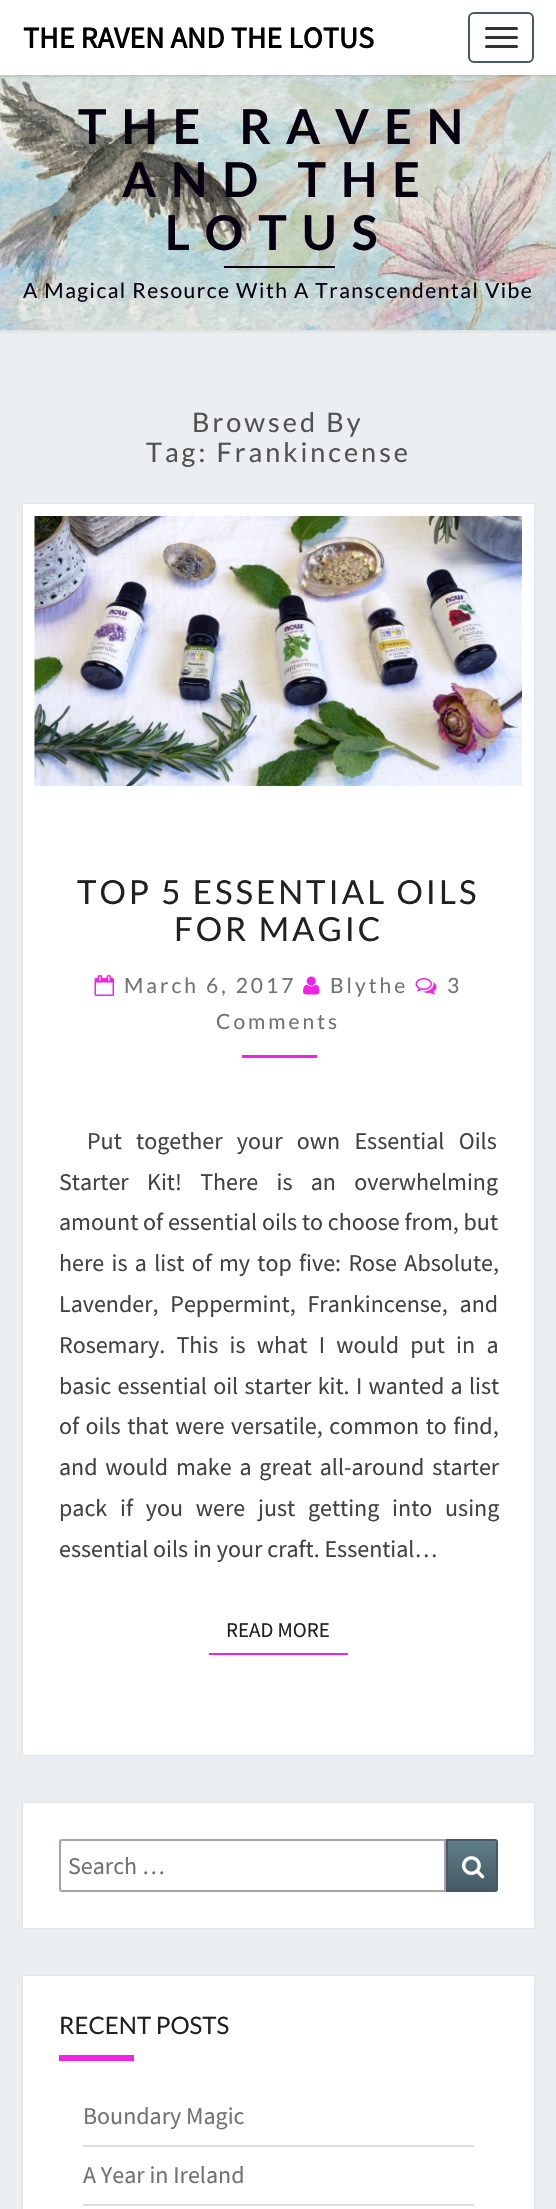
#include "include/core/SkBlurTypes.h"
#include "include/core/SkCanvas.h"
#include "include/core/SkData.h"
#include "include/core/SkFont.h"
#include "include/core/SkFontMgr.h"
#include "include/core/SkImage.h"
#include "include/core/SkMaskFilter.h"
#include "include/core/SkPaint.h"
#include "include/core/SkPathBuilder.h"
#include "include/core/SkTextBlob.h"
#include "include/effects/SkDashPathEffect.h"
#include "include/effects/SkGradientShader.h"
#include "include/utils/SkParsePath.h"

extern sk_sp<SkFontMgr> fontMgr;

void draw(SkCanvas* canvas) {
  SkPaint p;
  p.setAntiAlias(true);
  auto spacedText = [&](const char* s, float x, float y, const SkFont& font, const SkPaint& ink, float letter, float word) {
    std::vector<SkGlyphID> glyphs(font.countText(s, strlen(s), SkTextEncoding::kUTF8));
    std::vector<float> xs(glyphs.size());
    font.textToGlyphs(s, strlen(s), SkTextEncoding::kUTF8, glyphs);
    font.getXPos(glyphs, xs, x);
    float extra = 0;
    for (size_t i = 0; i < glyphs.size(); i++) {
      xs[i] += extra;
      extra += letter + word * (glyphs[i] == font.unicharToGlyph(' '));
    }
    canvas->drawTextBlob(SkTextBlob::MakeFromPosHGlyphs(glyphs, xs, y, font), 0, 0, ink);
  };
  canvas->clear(SkColorSetRGB(236, 239, 241));
  p.setColor(SkColorSetARGB(77, 182, 182, 182));
  p.setMaskFilter(SkMaskFilter::MakeBlur(kNormal_SkBlurStyle, 1.5f));
  canvas->drawRect(SkRect::MakeLTRB(-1, 74, 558, 332), p);
  p.setMaskFilter(nullptr);
  canvas->drawImageRect(SkImages::DeferredFromEncodedData(SkData::MakeFromFileName("images/1.png")), SkRect::MakeLTRB(0, 75, 556, 330), SkSamplingOptions());
  p.setColor(SkColorSetARGB(51, 100, 100, 100));
  p.setMaskFilter(SkMaskFilter::MakeBlur(kNormal_SkBlurStyle, 1));
  canvas->drawRect(SkRect::MakeLTRB(0, 2, 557, 77), p);
  p.setMaskFilter(nullptr);
  p.setColor(SK_ColorWHITE);
  canvas->drawRect(SkRect::MakeLTRB(0, 0, 556, 75), p);
  p.setStyle(SkPaint::kStroke_Style);
  p.setStrokeWidth(2);
  p.setColor(SkColorSetRGB(69, 90, 100));
  canvas->drawRoundRect(SkRect::MakeLTRB(469, 13, 533, 62), 5, 5, p);
  p.setStyle(SkPaint::kFill_Style);
  p.setColor(SkColorSetRGB(51, 51, 51));
  canvas->drawRoundRect(SkRect::MakeLTRB(485, 27, 518, 30), 1.5f, 1.5f, p);
  canvas->drawRoundRect(SkRect::MakeLTRB(485, 36, 518, 39), 1.5f, 1.5f, p);
  canvas->drawRoundRect(SkRect::MakeLTRB(485, 45, 518, 48), 1.5f, 1.5f, p);
  p.setColor(SkColorSetRGB(7, 0, 17));
  canvas->drawRect(SkRect::MakeLTRB(224, 266, 335, 268), p);
  p.setColor(SkColorSetARGB(38, 0, 0, 0));
  p.setMaskFilter(SkMaskFilter::MakeBlur(kNormal_SkBlurStyle, 1));
  canvas->drawRect(SkRect::MakeLTRB(23, 504, 534, 1755), p);
  p.setMaskFilter(nullptr);
  p.setColor(SK_ColorWHITE);
  canvas->drawRect(SkRect::MakeLTRB(23, 504, 534, 1755), p);
  canvas->drawImageRect(SkImages::DeferredFromEncodedData(SkData::MakeFromFileName("images/2.png")), SkRect::MakeLTRB(34, 516, 522, 786), SkSamplingOptions());
  canvas->drawImageRect(SkImages::DeferredFromEncodedData(SkData::MakeFromFileName("images/3.png")), SkRect::MakeLTRB(94, 975, 114, 996), SkSamplingOptions());
  canvas->drawImageRect(SkImages::DeferredFromEncodedData(SkData::MakeFromFileName("images/4.png")), SkRect::MakeLTRB(303, 976, 320, 995), SkSamplingOptions());
  canvas->drawImageRect(SkImages::DeferredFromEncodedData(SkData::MakeFromFileName("images/5.png")), SkRect::MakeLTRB(415, 978, 437, 995), SkSamplingOptions());
  p.setColor(SkColorSetRGB(242, 33, 231));
  canvas->drawRect(SkRect::MakeLTRB(242, 1055, 317, 1058), p);
  canvas->drawRect(SkRect::MakeLTRB(209, 1653, 348, 1655), p);
  p.setColor(SkColorSetARGB(38, 0, 0, 0));
  p.setMaskFilter(SkMaskFilter::MakeBlur(kNormal_SkBlurStyle, 1));
  canvas->drawRect(SkRect::MakeLTRB(23, 1803, 534, 1928), p);
  p.setMaskFilter(nullptr);
  p.setColor(SK_ColorWHITE);
  canvas->drawRect(SkRect::MakeLTRB(23, 1803, 534, 1928), p);
  p.setStyle(SkPaint::kStroke_Style);
  p.setColor(SkColorSetRGB(170, 161, 168));
  canvas->drawPath(SkPathBuilder().moveTo(62, 1840).lineTo(445, 1840).lineTo(445, 1891).lineTo(62, 1891).cubicTo(61, 1891, 60, 1890, 60, 1889).lineTo(60, 1842).cubicTo(60, 1841, 61, 1840, 62, 1840).close().detach(), p);
  p.setStyle(SkPaint::kFill_Style);
  {
    const SkColor colors[] = {SkColorSetRGB(96, 125, 139), SkColorSetRGB(69, 90, 100)};
    const float stops[] = {0, 1};
    const SkPoint ends[] = {{472, 1841}, {472, 1890}};
    p.setShader(SkGradientShader::MakeLinear(ends, colors, stops, 2, SkTileMode::kClamp));
    p.setAlpha(255);
  }
  canvas->drawRect(SkRect::MakeLTRB(448, 1841, 498, 1890), p);
  p.setStyle(SkPaint::kStroke_Style);
  p.setShader(nullptr);
  p.setColor(SkColorSetRGB(69, 90, 100));
  canvas->drawPath(SkPathBuilder().moveTo(447, 1840).lineTo(495, 1840).cubicTo(496, 1840, 497, 1841, 497, 1842).lineTo(497, 1889).cubicTo(497, 1890, 496, 1891, 495, 1891).lineTo(447, 1891).close().detach(), p);
  canvas->drawImageRect(SkImages::DeferredFromEncodedData(SkData::MakeFromFileName("images/6.png")), SkRect::MakeLTRB(462, 1856, 485, 1879), SkSamplingOptions());
  p.setStyle(SkPaint::kFill_Style);
  p.setColor(SkColorSetARGB(38, 0, 0, 0));
  p.setMaskFilter(SkMaskFilter::MakeBlur(kNormal_SkBlurStyle, 1));
  canvas->drawRect(SkRect::MakeLTRB(23, 1976, 534, 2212), p);
  p.setMaskFilter(nullptr);
  p.setColor(SK_ColorWHITE);
  canvas->drawRect(SkRect::MakeLTRB(23, 1976, 534, 2209), p);
  p.setColor(SkColorSetRGB(242, 33, 231));
  canvas->drawRect(SkRect::MakeLTRB(59, 2055, 134, 2061), p);
  p.setColor(SkColorSetRGB(221, 221, 221));
  canvas->drawRect(SkRect::MakeLTRB(83, 2145, 474, 2147), p);
  canvas->drawRect(SkRect::MakeLTRB(83, 2204, 474, 2206), p);
  SkFont font1(fontMgr->matchFamilyStyle("Source Sans Pro", SkFontStyle::Bold()), 30);
  font1.setSubpixel(true);
  p.setColor(SK_ColorBLACK);
  canvas->drawString("THE RAVEN AND THE LOTUS", 23, 48, font1, p);
  SkFont font2(fontMgr->matchFamilyStyle("Lato", SkFontStyle::Bold()), 48);
  font2.setSubpixel(true);
  p.setColor(SkColorSetRGB(7, 0, 17));
  spacedText("THE RAVEN", 78, 144, font2, p, 15, 0);
  spacedText("AND THE", 122, 197, font2, p, 15, 0);
  spacedText("LOTUS", 165, 250, font2, p, 15, 0);
  SkFont font3(fontMgr->matchFamilyStyle("Lato", SkFontStyle::Normal()), 21);
  font3.setSubpixel(true);
  spacedText("A Magical Resource With A Transcendental Vibe", 23, 298, font3, p, 1.5f, 0);
  SkFont font4(fontMgr->matchFamilyStyle("Lato", SkFontStyle::Normal()), 27);
  font4.setSubpixel(true);
  p.setColor(SkColorSetRGB(82, 82, 82));
  spacedText("Browsed By", 192, 432, font4, p, 3, 0);
  spacedText("Tag: Frankincense", 146, 462, font4, p, 3, 0);
  SkFont font5(fontMgr->matchFamilyStyle("Lato", SkFontStyle::Normal()), 33);
  font5.setSubpixel(true);
  p.setColor(SkColorSetRGB(33, 33, 33));
  spacedText("TOP 5 ESSENTIAL OILS", 77, 904, font5, p, 3, 0);
  spacedText("FOR MAGIC", 174, 941, font5, p, 3, 0);
  p.setColor(SkColorSetRGB(114, 114, 114));
  spacedText("March 6, 2017", 124, 993, font3, p, 3, 0);
  spacedText("Blythe", 330, 993, font3, p, 3, 0);
  spacedText("3", 447, 993, font3, p, 3, 0);
  spacedText("Comments", 216, 1029, font3, p, 3, 0);
  SkFont font6(fontMgr->matchFamilyStyle("Source Sans Pro", SkFontStyle::Normal()), 24);
  font6.setSubpixel(true);
  p.setColor(SkColorSetRGB(66, 66, 66));
  spacedText("Put together your own Essential Oils", 87, 1149, font6, p, 0, 9.5f);
  spacedText("Starter Kit! There is an overwhelming", 59, 1190, font6, p, 0, 13.5f);
  canvas->drawString("amount of essential oils to choose from, but", 59, 1230, font6, p);
  spacedText("here is a list of my top five: Rose Absolute,", 59, 1271, font6, p, 0, 2.5f);
  spacedText("Lavender, Peppermint, Frankincense, and", 59, 1312, font6, p, 0, 7);
  spacedText("Rosemary. This is what I would put in a", 59, 1353, font6, p, 0, 6.5f);
  spacedText("basic essential oil starter kit. I wanted a list", 59, 1394, font6, p, 0, 1.5f);
  spacedText("of oils that were versatile, common to find,", 59, 1434, font6, p, 0, 1.75f);
  spacedText("and would make a great all-around starter", 59, 1475, font6, p, 0, 3);
  spacedText("pack if you were just getting into using", 59, 1516, font6, p, 0, 8);
  canvas->drawString("essential oils in your craft. Essential…", 59, 1557, font6, p);
  SkFont font7(fontMgr->matchFamilyStyle("Source Sans Pro", SkFontStyle::Normal()), 21);
  font7.setSubpixel(true);
  p.setColor(SkColorSetRGB(33, 33, 33));
  canvas->drawString("READ MORE", 226, 1637, font7, p);
  p.setColor(SkColorSetRGB(114, 114, 114));
  canvas->drawString("Search …", 68, 1874, font6, p);
  SkFont font8(fontMgr->matchFamilyStyle("Lato", SkFontStyle::Normal()), 24);
  font8.setSubpixel(true);
  p.setColor(SkColorSetRGB(33, 33, 33));
  canvas->drawString("RECENT POSTS", 59, 2034, font8, p);
  p.setColor(SkColorSetRGB(114, 114, 114));
  canvas->drawString("Boundary Magic", 83, 2124, font6, p);
  canvas->drawString("A Year in Ireland", 83, 2183, font6, p);
}
